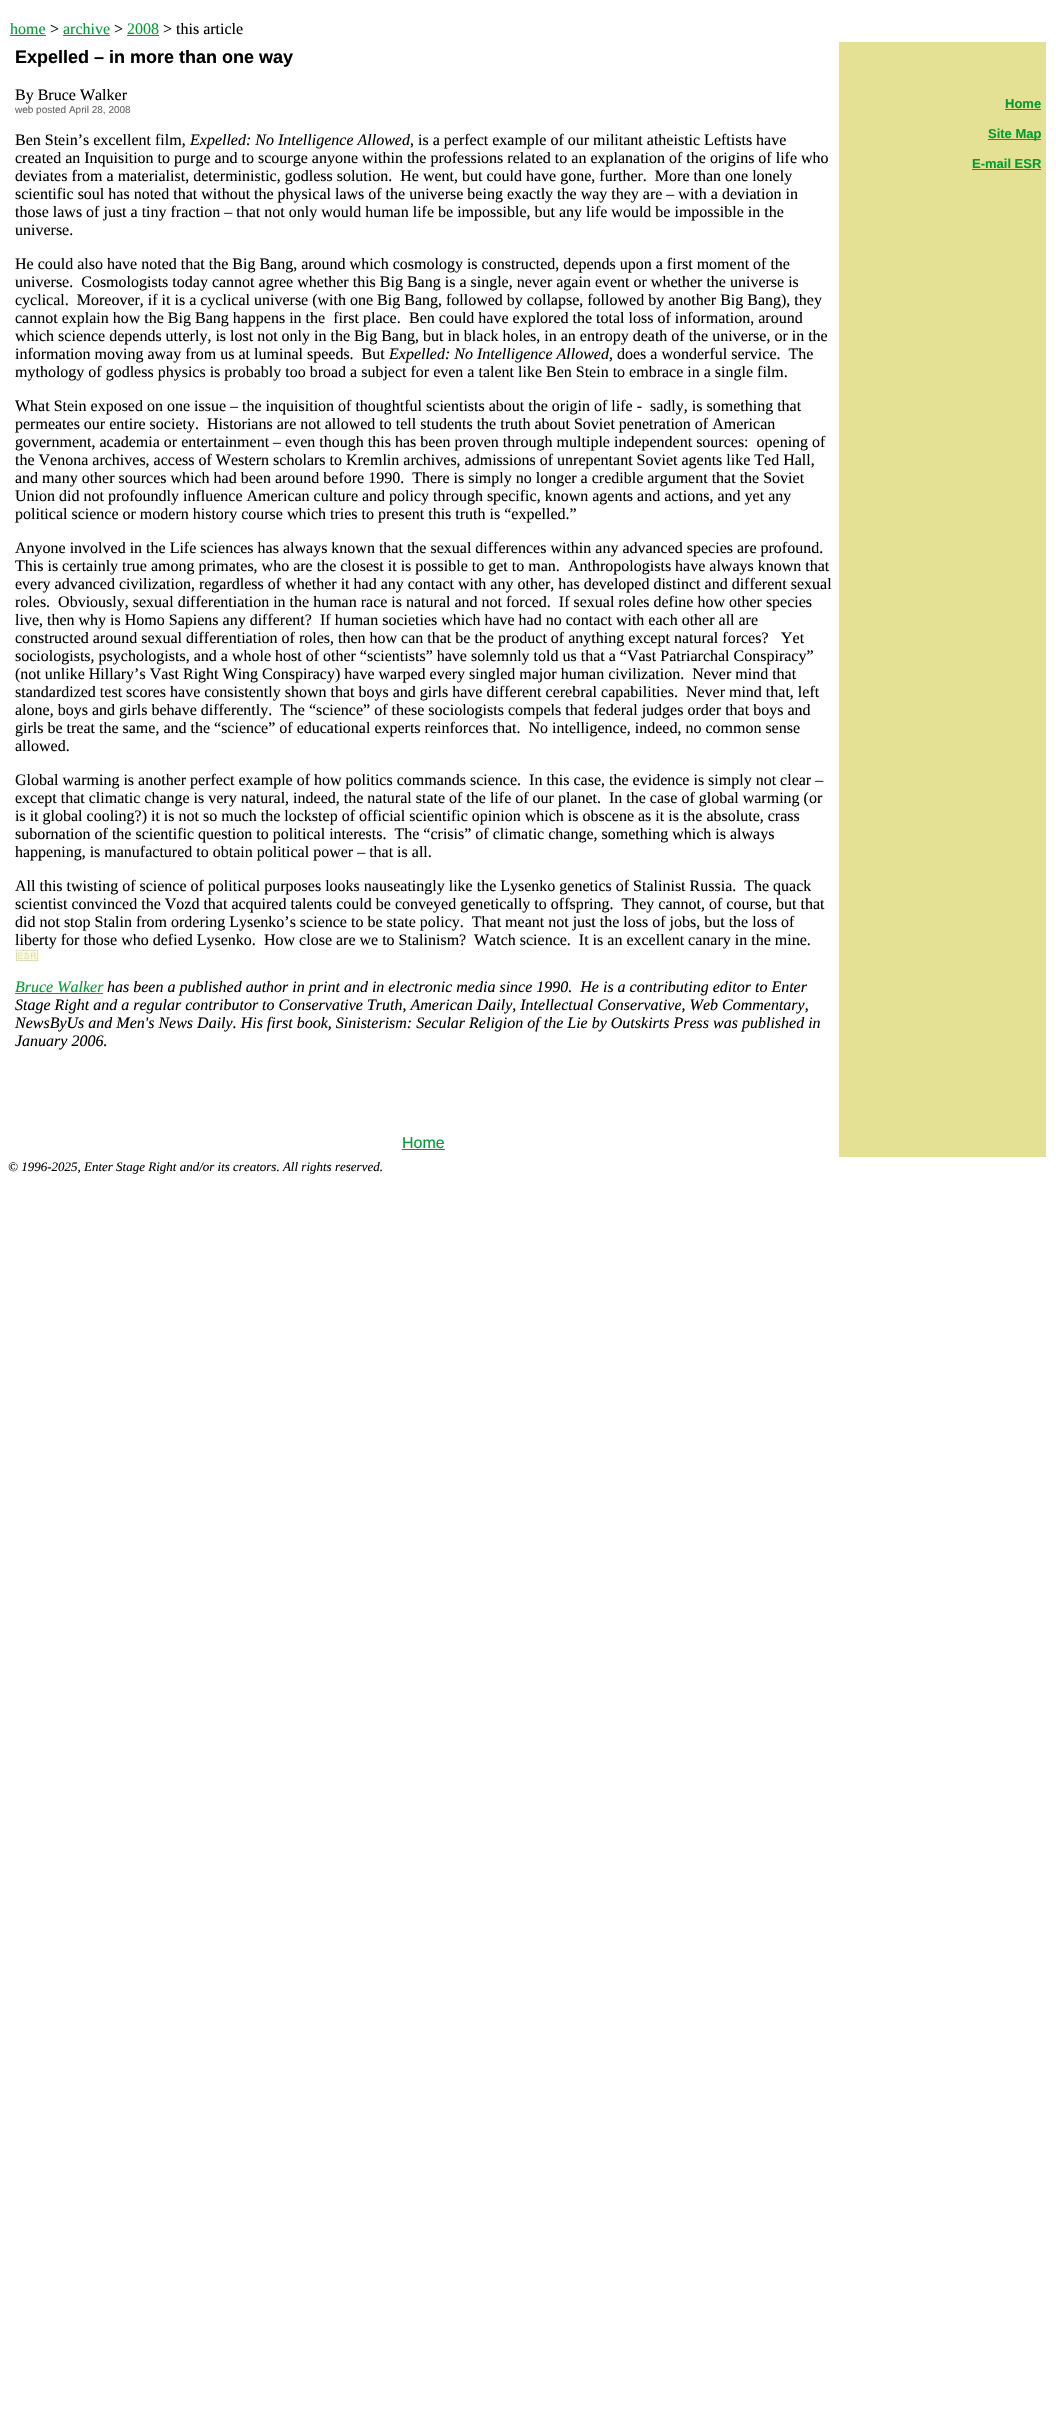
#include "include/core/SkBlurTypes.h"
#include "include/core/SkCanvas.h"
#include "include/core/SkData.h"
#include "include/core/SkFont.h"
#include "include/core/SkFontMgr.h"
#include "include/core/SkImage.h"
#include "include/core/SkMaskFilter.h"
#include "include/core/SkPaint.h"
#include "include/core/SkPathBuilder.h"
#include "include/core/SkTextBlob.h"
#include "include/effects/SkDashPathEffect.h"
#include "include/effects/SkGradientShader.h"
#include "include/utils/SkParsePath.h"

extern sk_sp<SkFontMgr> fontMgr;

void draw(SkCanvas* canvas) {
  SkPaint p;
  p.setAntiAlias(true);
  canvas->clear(SK_ColorWHITE);
  p.setColor(SkColorSetRGB(0, 157, 51));
  canvas->drawRect(SkRect::MakeLTRB(10, 35, 46, 36), p);
  canvas->drawRect(SkRect::MakeLTRB(63, 35, 110, 36), p);
  canvas->drawRect(SkRect::MakeLTRB(127, 35, 159, 36), p);
  canvas->drawImageRect(SkImages::DeferredFromEncodedData(SkData::MakeFromFileName("images/1.png")), SkRect::MakeLTRB(15, 949, 39, 962), SkSamplingOptions());
  canvas->drawRect(SkRect::MakeLTRB(15, 993, 103, 994), p);
  canvas->drawRect(SkRect::MakeLTRB(402, 1149, 445, 1150), p);
  p.setColor(SkColorSetRGB(228, 224, 148));
  canvas->drawRect(SkRect::MakeLTRB(839, 42, 1046, 1157), p);
  p.setColor(SkColorSetRGB(0, 157, 51));
  canvas->drawRect(SkRect::MakeLTRB(1005, 109, 1041, 110), p);
  canvas->drawRect(SkRect::MakeLTRB(988, 139, 1041, 140), p);
  canvas->drawRect(SkRect::MakeLTRB(972, 169, 1041, 170), p);
  SkFont font1(fontMgr->matchFamilyStyle("Liberation Serif", SkFontStyle::Normal()), 16);
  font1.setSubpixel(true);
  canvas->drawString("home", 10, 34, font1, p);
  p.setColor(SK_ColorBLACK);
  canvas->drawString(">", 50, 34, font1, p);
  p.setColor(SkColorSetRGB(0, 157, 51));
  canvas->drawString("archive", 63, 34, font1, p);
  p.setColor(SK_ColorBLACK);
  canvas->drawString(">", 114, 34, font1, p);
  p.setColor(SkColorSetRGB(0, 157, 51));
  canvas->drawString("2008", 127, 34, font1, p);
  p.setColor(SK_ColorBLACK);
  canvas->drawString("> this article", 163, 34, font1, p);
  SkFont font2(fontMgr->matchFamilyStyle("Liberation Sans", SkFontStyle::Bold()), 18);
  font2.setSubpixel(true);
  canvas->drawString("Expelled – in more than one way", 15, 63, font2, p);
  canvas->drawString("By Bruce Walker", 15, 100, font1, p);
  SkFont font3(fontMgr->matchFamilyStyle("Liberation Sans", SkFontStyle::Normal()), 10);
  font3.setSubpixel(true);
  p.setColor(SkColorSetRGB(102, 102, 102));
  canvas->drawString("web posted April 28, 2008", 15, 113, font3, p);
  p.setColor(SK_ColorBLACK);
  canvas->drawString("Ben Stein’s excellent film,", 15, 145, font1, p);
  SkFont font4(fontMgr->matchFamilyStyle("Liberation Serif", SkFontStyle::Italic()), 16);
  font4.setSubpixel(true);
  canvas->drawString("Expelled: No Intelligence Allowed", 190, 145, font4, p);
  canvas->drawString(", is a perfect example of our militant atheistic Leftists have", 410, 145, font1, p);
  canvas->drawString("created an Inquisition to purge and to scourge anyone within the professions related to an explanation of the origins of life who", 15, 163, font1, p);
  canvas->drawString("deviates from a materialist, deterministic, godless solution.  He went, but could have gone, further.  More than one lonely", 15, 181, font1, p);
  canvas->drawString("scientific soul has noted that without the physical laws of the universe being exactly the way they are – with a deviation in", 15, 199, font1, p);
  canvas->drawString("those laws of just a tiny fraction – that not only would human life be impossible, but any life would be impossible in the", 15, 217, font1, p);
  canvas->drawString("universe.", 15, 235, font1, p);
  canvas->drawString("He could also have noted that the Big Bang, around which cosmology is constructed, depends upon a first moment of the", 15, 269, font1, p);
  canvas->drawString("universe.  Cosmologists today cannot agree whether this Big Bang is a single, never again event or whether the universe is", 15, 287, font1, p);
  canvas->drawString("cyclical.  Moreover, if it is a cyclical universe (with one Big Bang, followed by collapse, followed by another Big Bang), they", 15, 305, font1, p);
  canvas->drawString("cannot explain how the Big Bang happens in the  first place.", 15, 323, font1, p);
  canvas->drawString("Ben could have explored the total loss of information, around", 409, 323, font1, p);
  canvas->drawString("which science depends utterly, is lost not only in the Big Bang, but in black holes, in an entropy death of the universe, or in the", 15, 341, font1, p);
  canvas->drawString("information moving away from us at luminal speeds.  But", 15, 359, font1, p);
  canvas->drawString("Expelled: No Intelligence Allowed", 389, 359, font4, p);
  canvas->drawString(", does a wonderful service.  The", 609, 359, font1, p);
  canvas->drawString("mythology of godless physics is probably too broad a subject for even a talent like Ben Stein to embrace in a single film.", 15, 377, font1, p);
  canvas->drawString("What Stein exposed on one issue – the inquisition of thoughtful scientists about the origin of life -  sadly, is something that", 15, 411, font1, p);
  canvas->drawString("permeates our entire society.  Historians are not allowed to tell students the truth about Soviet penetration of American", 15, 429, font1, p);
  canvas->drawString("government, academia or entertainment – even though this has been proven through multiple independent sources:  opening of", 15, 447, font1, p);
  canvas->drawString("the Venona archives, access of Western scholars to Kremlin archives, admissions of unrepentant Soviet agents like Ted Hall,", 15, 465, font1, p);
  canvas->drawString("and many other sources which had been around before 1990.  There is simply no longer a credible argument that the Soviet", 15, 483, font1, p);
  canvas->drawString("Union did not profoundly influence American culture and policy through specific, known agents and actions, and yet any", 15, 501, font1, p);
  canvas->drawString("political science or modern history course which tries to present this truth is “expelled.”", 15, 519, font1, p);
  canvas->drawString("Anyone involved in the Life sciences has always known that the sexual differences within any advanced species are profound.", 15, 553, font1, p);
  canvas->drawString("This is certainly true among primates, who are the closest it is possible to get to man.", 15, 571, font1, p);
  canvas->drawString("Anthropologists have always known that", 568, 571, font1, p);
  canvas->drawString("every advanced civilization, regardless of whether it had any contact with any other, has developed distinct and different sexual", 15, 589, font1, p);
  canvas->drawString("roles.  Obviously, sexual differentiation in the human race is natural and not forced.  If sexual roles define how other species", 15, 607, font1, p);
  canvas->drawString("live, then why is Homo Sapiens any different?", 15, 625, font1, p);
  canvas->drawString("If human societies which have had no contact with each other all are", 320, 625, font1, p);
  canvas->drawString("constructed around sexual differentiation of roles, then how can that be the product of anything except natural forces?", 15, 643, font1, p);
  canvas->drawString("Yet", 781, 643, font1, p);
  canvas->drawString("sociologists, psychologists, and a whole host of other “scientists” have solemnly told us that a “Vast Patriarchal Conspiracy”", 15, 661, font1, p);
  canvas->drawString("(not unlike Hillary’s Vast Right Wing Conspiracy) have warped every singled major human civilization.  Never mind that", 15, 679, font1, p);
  canvas->drawString("standardized test scores have consistently shown that boys and girls have different cerebral capabilities.  Never mind that, left", 15, 697, font1, p);
  canvas->drawString("alone, boys and girls behave differently.", 15, 715, font1, p);
  canvas->drawString("The “science” of these sociologists compels that federal judges order that boys and", 280, 715, font1, p);
  canvas->drawString("girls be treat the same, and the “science” of educational experts reinforces that.  No intelligence, indeed, no common sense", 15, 733, font1, p);
  canvas->drawString("allowed.", 15, 751, font1, p);
  canvas->drawString("Global warming is another perfect example of how politics commands science.  In this case, the evidence is simply not clear –", 15, 785, font1, p);
  canvas->drawString("except that climatic change is very natural, indeed, the natural state of the life of our planet.  In the case of global warming (or", 15, 803, font1, p);
  canvas->drawString("is it global cooling?) it is not so much the lockstep of official scientific opinion which is obscene as it is the absolute, crass", 15, 821, font1, p);
  canvas->drawString("subornation of the scientific question to political interests.  The “crisis” of climatic change, something which is always", 15, 839, font1, p);
  canvas->drawString("happening, is manufactured to obtain political power – that is all.", 15, 857, font1, p);
  canvas->drawString("All this twisting of science of political purposes looks nauseatingly like the Lysenko genetics of Stalinist Russia.  The quack", 15, 891, font1, p);
  canvas->drawString("scientist convinced the Vozd that acquired talents could be conveyed genetically to offspring.  They cannot, of course, but that", 15, 909, font1, p);
  canvas->drawString("did not stop Stalin from ordering Lysenko’s science to be state policy.  That meant not just the loss of jobs, but the loss of", 15, 927, font1, p);
  canvas->drawString("liberty for those who defied Lysenko.", 15, 945, font1, p);
  canvas->drawString("How close are we to Stalinism?", 264, 945, font1, p);
  canvas->drawString("Watch science.  It is an excellent canary in the mine.", 474, 945, font1, p);
  p.setColor(SkColorSetRGB(0, 157, 51));
  canvas->drawString("Bruce Walker", 15, 992, font4, p);
  p.setColor(SK_ColorBLACK);
  canvas->drawString("has been a published author in print and in electronic media since 1990.  He is a contributing editor to Enter", 107, 992, font4, p);
  canvas->drawString("Stage Right and a regular contributor to Conservative Truth, American Daily, Intellectual Conservative, Web Commentary,", 15, 1010, font4, p);
  canvas->drawString("NewsByUs and Men's News Daily. His first book, Sinisterism: Secular Religion of the Lie by Outskirts Press was published in", 15, 1028, font4, p);
  canvas->drawString("January 2006.", 15, 1046, font4, p);
  SkFont font5(fontMgr->matchFamilyStyle("Liberation Sans", SkFontStyle::Normal()), 16);
  font5.setSubpixel(true);
  p.setColor(SkColorSetRGB(0, 157, 51));
  canvas->drawString("Home", 402, 1148, font5, p);
  SkFont font6(fontMgr->matchFamilyStyle("Liberation Sans", SkFontStyle::Bold()), 13);
  font6.setSubpixel(true);
  canvas->drawString("Home", 1005, 108, font6, p);
  canvas->drawString("Site Map", 988, 138, font6, p);
  canvas->drawString("E-mail ESR", 972, 168, font6, p);
  SkFont font7(fontMgr->matchFamilyStyle("Liberation Serif", SkFontStyle::Italic()), 13);
  font7.setSubpixel(true);
  p.setColor(SK_ColorBLACK);
  canvas->drawString("© 1996-2025, Enter Stage Right and/or its creators. All rights reserved.", 8, 1171, font7, p);
}
